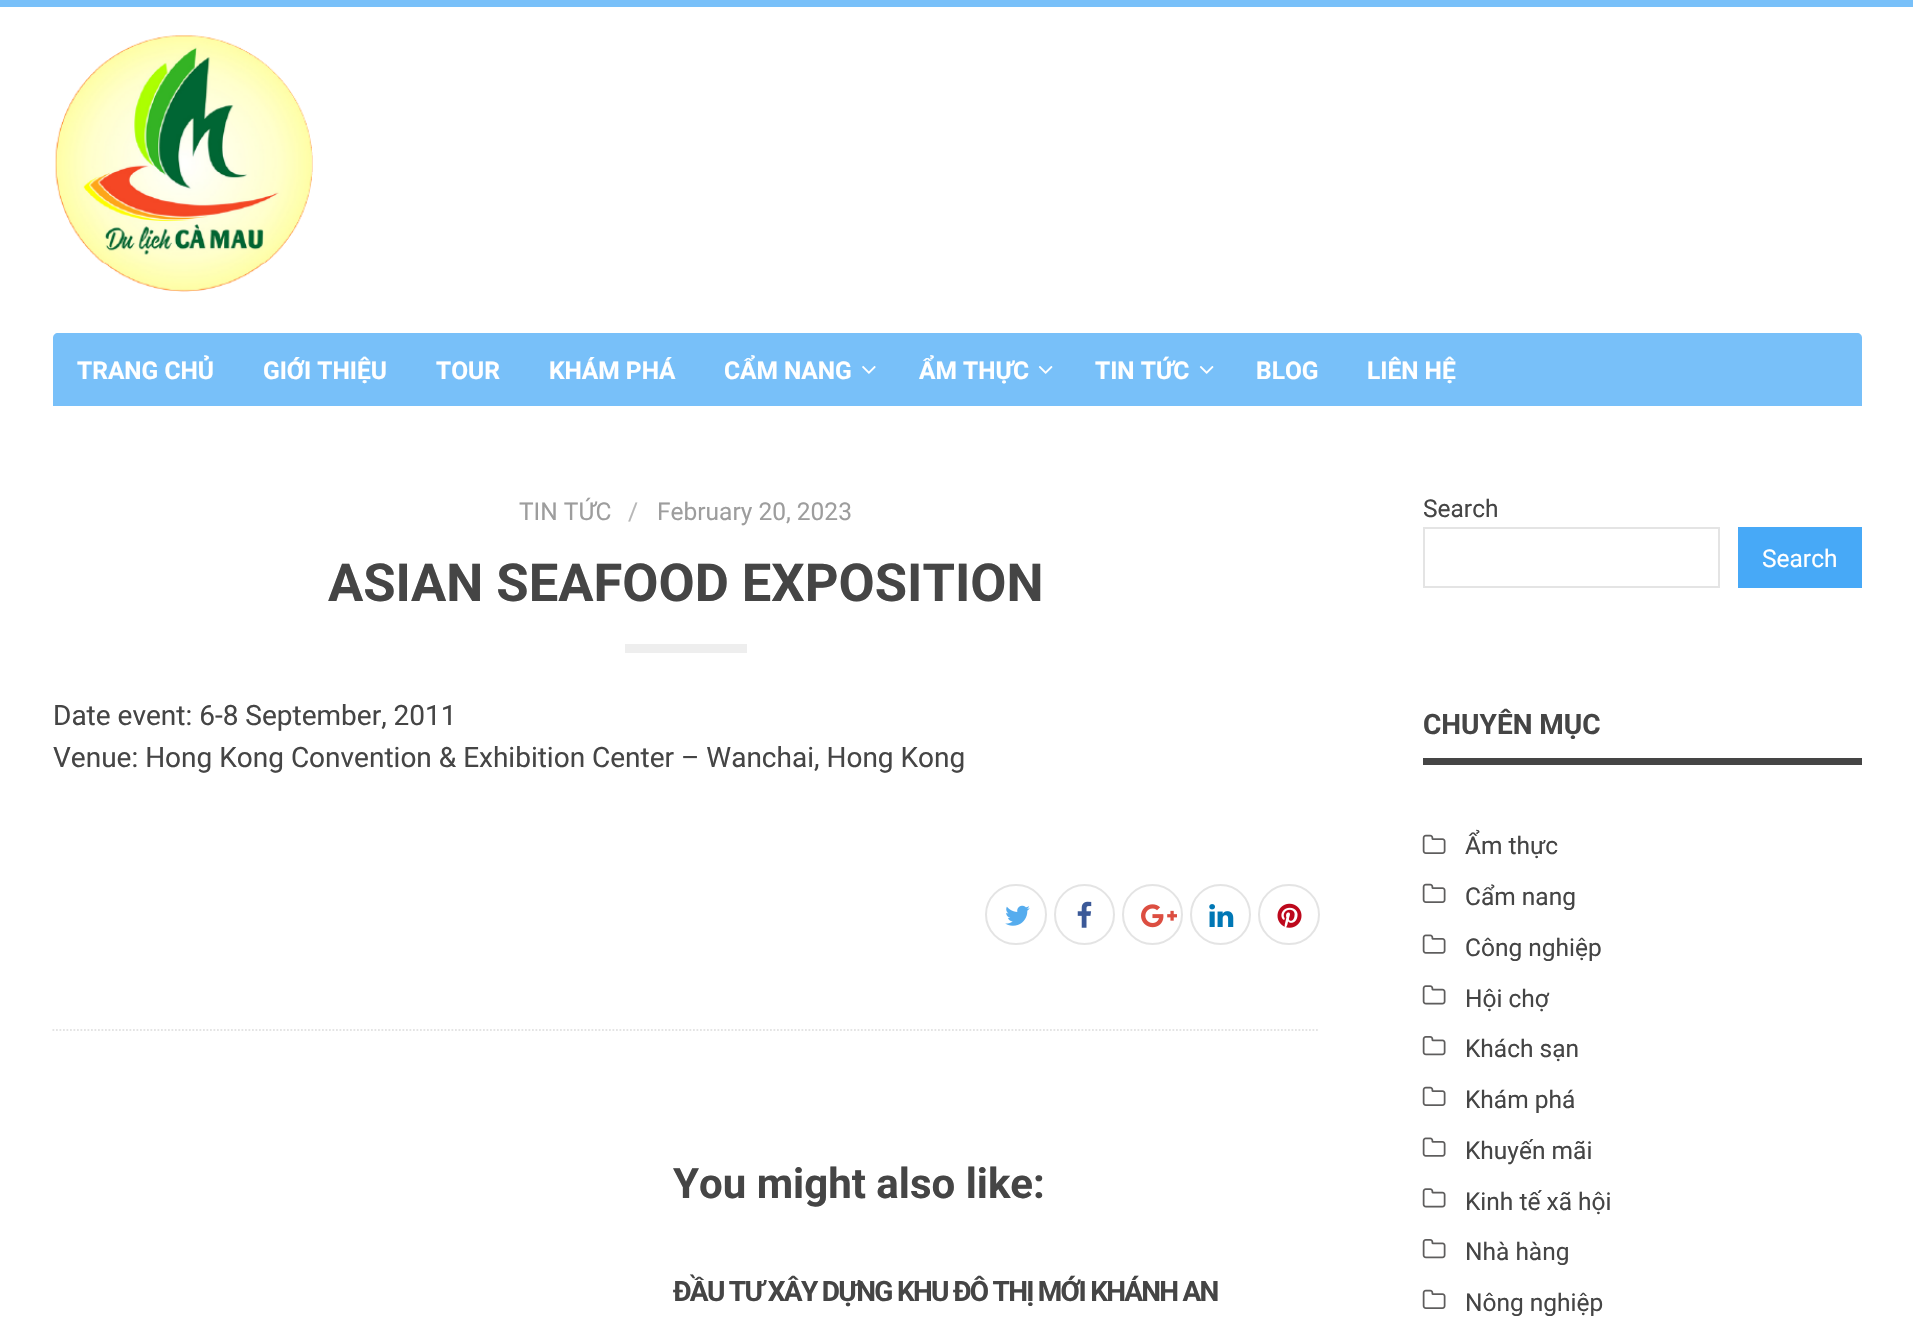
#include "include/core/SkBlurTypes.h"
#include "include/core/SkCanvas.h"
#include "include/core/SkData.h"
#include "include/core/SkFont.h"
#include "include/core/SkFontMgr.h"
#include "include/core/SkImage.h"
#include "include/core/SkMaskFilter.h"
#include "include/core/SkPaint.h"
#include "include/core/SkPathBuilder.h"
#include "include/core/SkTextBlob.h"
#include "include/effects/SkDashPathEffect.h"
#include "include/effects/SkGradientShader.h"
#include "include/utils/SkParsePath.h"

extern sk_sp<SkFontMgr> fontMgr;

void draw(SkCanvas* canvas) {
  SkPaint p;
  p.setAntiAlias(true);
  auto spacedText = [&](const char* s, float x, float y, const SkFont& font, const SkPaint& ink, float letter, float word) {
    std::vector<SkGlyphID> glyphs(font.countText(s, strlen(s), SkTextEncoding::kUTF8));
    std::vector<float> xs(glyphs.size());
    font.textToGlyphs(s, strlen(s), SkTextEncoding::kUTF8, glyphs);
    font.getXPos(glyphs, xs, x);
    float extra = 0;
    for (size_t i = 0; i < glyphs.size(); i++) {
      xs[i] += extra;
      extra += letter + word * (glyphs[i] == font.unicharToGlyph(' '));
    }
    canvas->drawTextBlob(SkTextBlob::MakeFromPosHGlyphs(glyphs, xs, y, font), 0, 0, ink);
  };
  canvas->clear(SK_ColorWHITE);
  p.setColor(SkColorSetRGB(120, 192, 249));
  canvas->drawRect(SkRect::MakeLTRB(0, 0, 1913, 7), p);
  canvas->drawImageRect(SkImages::DeferredFromEncodedData(SkData::MakeFromFileName("images/1.png")), SkRect::MakeLTRB(55, 35, 313, 292), SkSamplingOptions());
  canvas->drawPath(SkPathBuilder().moveTo(58, 333).lineTo(1857, 333).cubicTo(1860, 333, 1862, 335, 1862, 338).lineTo(1862, 406).lineTo(53, 406).lineTo(53, 338).cubicTo(53, 335, 55, 333, 58, 333).close().detach(), p);
  canvas->drawImageRect(SkImages::DeferredFromEncodedData(SkData::MakeFromFileName("images/2.png")), SkRect::MakeLTRB(862, 366, 876, 374), SkSamplingOptions());
  canvas->drawImageRect(SkImages::DeferredFromEncodedData(SkData::MakeFromFileName("images/3.png")), SkRect::MakeLTRB(1038, 366, 1053, 374), SkSamplingOptions());
  canvas->drawImageRect(SkImages::DeferredFromEncodedData(SkData::MakeFromFileName("images/3.png")), SkRect::MakeLTRB(1199, 366, 1214, 374), SkSamplingOptions());
  p.setStyle(SkPaint::kStroke_Style);
  p.setStrokeWidth(1.8f);
  p.setColor(SkColorSetRGB(228, 228, 228));
  p.setPathEffect(SkDashPathEffect::Make({{1.75f, 1.75f}}, 0));
  canvas->drawPath(SkPathBuilder().moveTo(52.5f, 1030).lineTo(1319.5f, 1030).detach(), p);
  p.setPathEffect(nullptr);
  p.setStyle(SkPaint::kFill_Style);
  p.setColor(SkColorSetRGB(238, 238, 238));
  canvas->drawRect(SkRect::MakeLTRB(625, 644, 747, 653), p);
  p.setStyle(SkPaint::kStroke_Style);
  p.setStrokeWidth(2);
  p.setColor(SkColorSetRGB(228, 228, 228));
  canvas->drawRoundRect(SkRect::MakeLTRB(986, 885, 1046, 944), 29.5f, 29.5f, p);
  canvas->drawImageRect(SkImages::DeferredFromEncodedData(SkData::MakeFromFileName("images/4.png")), SkRect::MakeLTRB(1005, 905, 1030, 926), SkSamplingOptions());
  canvas->drawCircle(1084.5f, 914.5f, 29.5f, p);
  canvas->drawImageRect(SkImages::DeferredFromEncodedData(SkData::MakeFromFileName("images/5.png")), SkRect::MakeLTRB(1077, 901, 1092, 928), SkSamplingOptions());
  canvas->drawCircle(1152.5f, 914.5f, 29.5f, p);
  canvas->drawImageRect(SkImages::DeferredFromEncodedData(SkData::MakeFromFileName("images/6.png")), SkRect::MakeLTRB(1141, 904, 1177, 928), SkSamplingOptions());
  canvas->drawCircle(1220.5f, 914.5f, 29.5f, p);
  canvas->drawImageRect(SkImages::DeferredFromEncodedData(SkData::MakeFromFileName("images/7.png")), SkRect::MakeLTRB(1209, 904, 1234, 927), SkSamplingOptions());
  canvas->drawRoundRect(SkRect::MakeLTRB(1259, 885, 1319, 944), 29.5f, 29.5f, p);
  canvas->drawImageRect(SkImages::DeferredFromEncodedData(SkData::MakeFromFileName("images/8.png")), SkRect::MakeLTRB(1277, 903, 1302, 928), SkSamplingOptions());
  canvas->drawRect(SkRect::MakeLTRB(1424, 528, 1719, 587), p);
  p.setStyle(SkPaint::kFill_Style);
  p.setColor(SkColorSetRGB(71, 169, 247));
  canvas->drawRect(SkRect::MakeLTRB(1738, 527, 1862, 588), p);
  p.setColor(SkColorSetRGB(69, 69, 69));
  canvas->drawRect(SkRect::MakeLTRB(1423, 758, 1862, 765), p);
  canvas->drawImageRect(SkImages::DeferredFromEncodedData(SkData::MakeFromFileName("images/9.png")), SkRect::MakeLTRB(1422, 834, 1446, 854), SkSamplingOptions());
  canvas->drawImageRect(SkImages::DeferredFromEncodedData(SkData::MakeFromFileName("images/9.png")), SkRect::MakeLTRB(1422, 883, 1446, 903), SkSamplingOptions());
  canvas->drawImageRect(SkImages::DeferredFromEncodedData(SkData::MakeFromFileName("images/10.png")), SkRect::MakeLTRB(1422, 934, 1446, 954), SkSamplingOptions());
  canvas->drawImageRect(SkImages::DeferredFromEncodedData(SkData::MakeFromFileName("images/11.png")), SkRect::MakeLTRB(1422, 985, 1446, 1005), SkSamplingOptions());
  canvas->drawImageRect(SkImages::DeferredFromEncodedData(SkData::MakeFromFileName("images/12.png")), SkRect::MakeLTRB(1422, 1036, 1446, 1056), SkSamplingOptions());
  canvas->drawImageRect(SkImages::DeferredFromEncodedData(SkData::MakeFromFileName("images/9.png")), SkRect::MakeLTRB(1422, 1086, 1446, 1106), SkSamplingOptions());
  canvas->drawImageRect(SkImages::DeferredFromEncodedData(SkData::MakeFromFileName("images/10.png")), SkRect::MakeLTRB(1422, 1137, 1446, 1157), SkSamplingOptions());
  canvas->drawImageRect(SkImages::DeferredFromEncodedData(SkData::MakeFromFileName("images/11.png")), SkRect::MakeLTRB(1422, 1188, 1446, 1208), SkSamplingOptions());
  canvas->drawImageRect(SkImages::DeferredFromEncodedData(SkData::MakeFromFileName("images/12.png")), SkRect::MakeLTRB(1422, 1239, 1446, 1259), SkSamplingOptions());
  canvas->drawImageRect(SkImages::DeferredFromEncodedData(SkData::MakeFromFileName("images/9.png")), SkRect::MakeLTRB(1422, 1289, 1446, 1309), SkSamplingOptions());
  SkFont font1(fontMgr->matchFamilyStyle("Roboto", SkFontStyle::Bold()), 24.5f);
  font1.setSubpixel(true);
  p.setColor(SK_ColorWHITE);
  canvas->drawString("TRANG CHỦ", 77, 379, font1, p);
  canvas->drawString("GIỚI THIỆU", 263, 379, font1, p);
  canvas->drawString("TOUR", 436, 379, font1, p);
  canvas->drawString("KHÁM PHÁ", 549, 379, font1, p);
  canvas->drawString("CẨM NANG", 724, 379, font1, p);
  canvas->drawString("ẨM THỰC", 919, 379, font1, p);
  canvas->drawString("TIN TỨC", 1095, 379, font1, p);
  canvas->drawString("BLOG", 1256, 379, font1, p);
  canvas->drawString("LIÊN HỆ", 1367, 379, font1, p);
  SkFont font2(fontMgr->matchFamilyStyle("Roboto", SkFontStyle::Normal()), 24.5f);
  font2.setSubpixel(true);
  p.setColor(SkColorSetRGB(157, 157, 157));
  canvas->drawString("TIN TỨC", 519, 520, font2, p);
  p.setColor(SkColorSetRGB(183, 183, 183));
  canvas->drawString("/", 628, 520, font2, p);
  p.setColor(SkColorSetRGB(157, 157, 157));
  canvas->drawString("February 20, 2023", 657, 520, font2, p);
  SkFont font3(fontMgr->matchFamilyStyle("Roboto", SkFontStyle::Bold()), 52.5f);
  font3.setSubpixel(true);
  p.setColor(SkColorSetRGB(69, 69, 69));
  canvas->drawString("ASIAN SEAFOOD EXPOSITION", 328, 601, font3, p);
  SkFont font4(fontMgr->matchFamilyStyle("Roboto", SkFontStyle::Normal()), 28);
  font4.setSubpixel(true);
  canvas->drawString("Date event: 6-8 September, 2011", 53, 725, font4, p);
  canvas->drawString("Venue: Hong Kong Convention & Exhibition Center – Wanchai, Hong Kong", 53, 767, font4, p);
  SkFont font5(fontMgr->matchFamilyStyle("Roboto", SkFontStyle::Bold()), 42);
  font5.setSubpixel(true);
  canvas->drawString("You might also like:", 673, 1198, font5, p);
  SkFont font6(fontMgr->matchFamilyStyle("Roboto", SkFontStyle::Bold()), 28);
  font6.setSubpixel(true);
  spacedText("ĐẦU TƯ XÂY DỰNG KHU ĐÔ THỊ MỚI KHÁNH AN", 673, 1301, font6, p, -1.75f, 0);
  canvas->drawString("Search", 1423, 517, font2, p);
  p.setColor(SK_ColorWHITE);
  canvas->drawString("Search", 1762, 567, font2, p);
  p.setColor(SkColorSetRGB(69, 69, 69));
  canvas->drawString("CHUYÊN MỤC", 1423, 734, font6, p);
  canvas->drawString("Ẩm thực", 1465, 854, font2, p);
  canvas->drawString("Cẩm nang", 1465, 905, font2, p);
  canvas->drawString("Công nghiệp", 1465, 956, font2, p);
  canvas->drawString("Hội chợ", 1465, 1007, font2, p);
  canvas->drawString("Khách sạn", 1465, 1057, font2, p);
  canvas->drawString("Khám phá", 1465, 1108, font2, p);
  canvas->drawString("Khuyến mãi", 1465, 1159, font2, p);
  canvas->drawString("Kinh tế xã hội", 1465, 1210, font2, p);
  canvas->drawString("Nhà hàng", 1465, 1260, font2, p);
  canvas->drawString("Nông nghiệp", 1465, 1311, font2, p);
}
